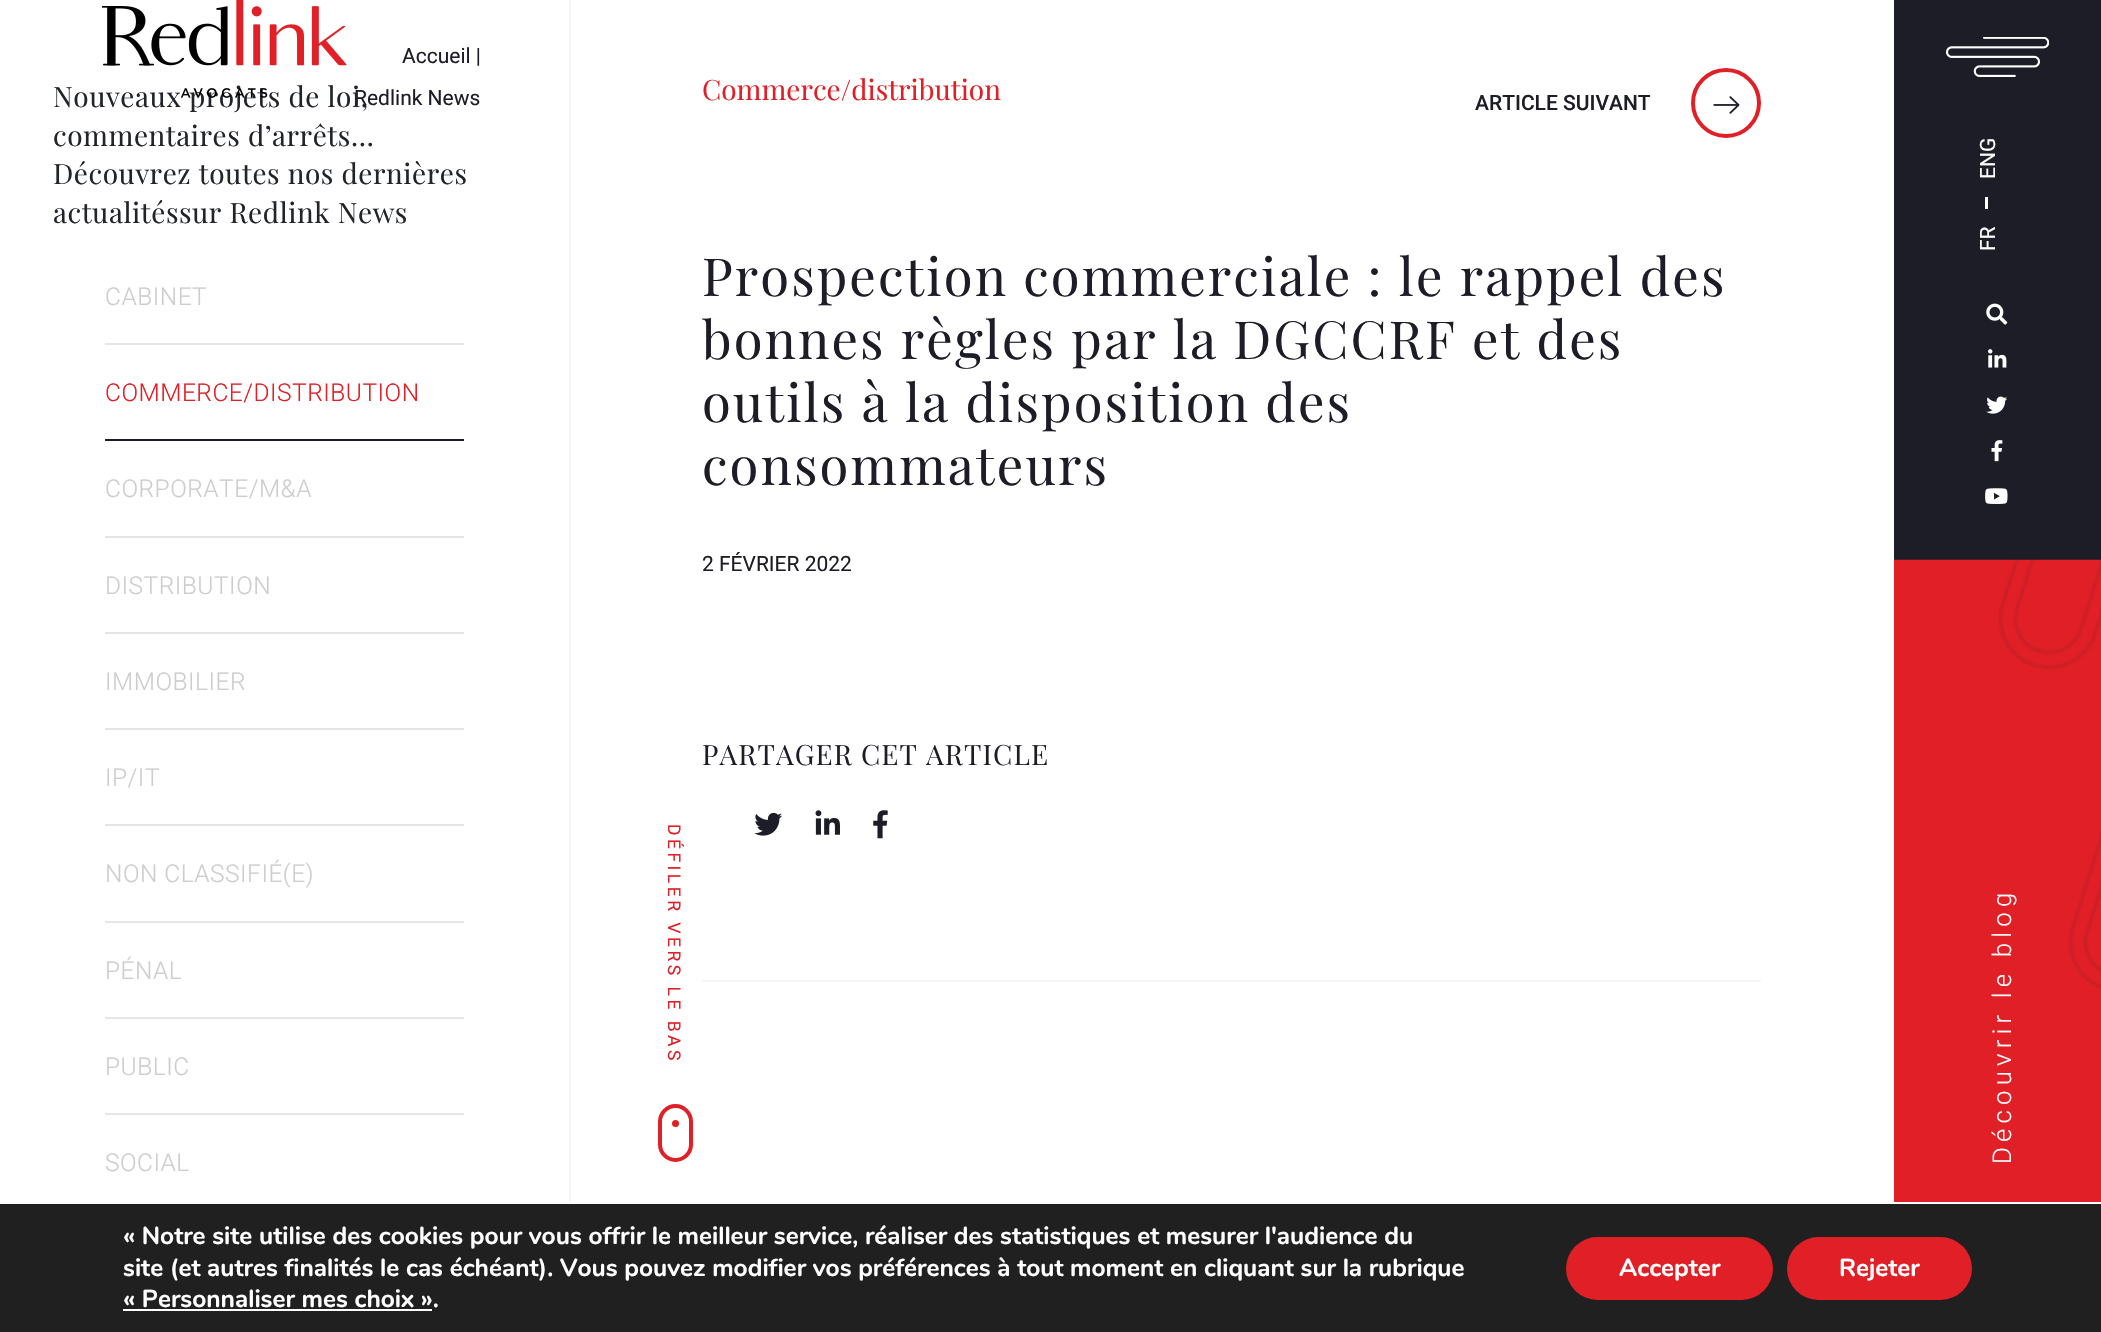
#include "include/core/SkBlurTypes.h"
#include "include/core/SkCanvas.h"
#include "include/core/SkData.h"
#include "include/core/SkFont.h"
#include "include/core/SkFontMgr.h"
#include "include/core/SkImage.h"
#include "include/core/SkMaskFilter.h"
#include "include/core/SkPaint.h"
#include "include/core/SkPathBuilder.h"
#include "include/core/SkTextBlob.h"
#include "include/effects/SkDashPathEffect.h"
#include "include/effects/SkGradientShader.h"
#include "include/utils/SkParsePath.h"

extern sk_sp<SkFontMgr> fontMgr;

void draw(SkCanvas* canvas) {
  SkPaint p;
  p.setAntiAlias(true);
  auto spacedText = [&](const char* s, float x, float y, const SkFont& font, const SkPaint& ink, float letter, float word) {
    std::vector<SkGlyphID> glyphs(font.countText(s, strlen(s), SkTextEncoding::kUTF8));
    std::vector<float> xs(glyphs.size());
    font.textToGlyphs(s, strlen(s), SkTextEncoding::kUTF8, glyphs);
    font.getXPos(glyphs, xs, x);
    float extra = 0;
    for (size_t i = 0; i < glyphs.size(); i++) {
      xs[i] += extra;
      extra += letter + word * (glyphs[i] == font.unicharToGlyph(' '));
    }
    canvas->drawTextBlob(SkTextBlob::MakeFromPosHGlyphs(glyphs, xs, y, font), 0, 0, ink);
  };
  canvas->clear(SK_ColorWHITE);
  p.setColor(SkColorSetRGB(229, 229, 229));
  canvas->drawRect(SkRect::MakeLTRB(105, 343, 464, 345), p);
  p.setColor(SkColorSetRGB(29, 29, 40));
  canvas->drawRect(SkRect::MakeLTRB(105, 439, 464, 441), p);
  p.setColor(SkColorSetRGB(229, 229, 229));
  canvas->drawRect(SkRect::MakeLTRB(105, 536, 464, 538), p);
  canvas->drawRect(SkRect::MakeLTRB(105, 632, 464, 634), p);
  canvas->drawRect(SkRect::MakeLTRB(105, 728, 464, 730), p);
  canvas->drawRect(SkRect::MakeLTRB(105, 824, 464, 826), p);
  canvas->drawRect(SkRect::MakeLTRB(105, 921, 464, 923), p);
  canvas->drawRect(SkRect::MakeLTRB(105, 1017, 464, 1019), p);
  canvas->drawRect(SkRect::MakeLTRB(105, 1113, 464, 1115), p);
  p.setColor(SkColorSetRGB(245, 245, 245));
  canvas->drawRect(SkRect::MakeLTRB(569, 0, 571, 1202), p);
  p.setStyle(SkPaint::kStroke_Style);
  p.setStrokeWidth(4);
  p.setColor(SkColorSetRGB(225, 31, 38));
  canvas->drawCircle(1726, 103, 33, p);
  canvas->drawImageRect(SkImages::DeferredFromEncodedData(SkData::MakeFromFileName("images/2.png")), SkRect::MakeLTRB(1713, 96, 1740, 114), SkSamplingOptions());
  p.setStyle(SkPaint::kFill_Style);
  p.setColor(SkColorSetRGB(245, 245, 245));
  canvas->drawRect(SkRect::MakeLTRB(702, 980, 1761, 982), p);
  canvas->drawImageRect(SkImages::DeferredFromEncodedData(SkData::MakeFromFileName("images/3.png")), SkRect::MakeLTRB(754, 812, 783, 836), SkSamplingOptions());
  canvas->drawImageRect(SkImages::DeferredFromEncodedData(SkData::MakeFromFileName("images/4.png")), SkRect::MakeLTRB(815, 810, 840, 835), SkSamplingOptions());
  canvas->drawImageRect(SkImages::DeferredFromEncodedData(SkData::MakeFromFileName("images/5.png")), SkRect::MakeLTRB(873, 810, 888, 839), SkSamplingOptions());
  p.setStyle(SkPaint::kStroke_Style);
  p.setColor(SkColorSetRGB(225, 31, 38));
  canvas->drawRoundRect(SkRect::MakeLTRB(660, 1106, 691, 1160), 15.5f, 15.5f, p);
  p.setStyle(SkPaint::kFill_Style);
  canvas->drawCircle(675.5f, 1123.5f, 3.5f, p);
  p.setColor(SkColorSetRGB(29, 29, 40));
  canvas->drawRect(SkRect::MakeLTRB(1894, 0, 2101, 560), p);
  canvas->drawImageRect(SkImages::DeferredFromEncodedData(SkData::MakeFromFileName("images/6.png")), SkRect::MakeLTRB(1946, 37, 2049, 77), SkSamplingOptions());
  p.setColor(SK_ColorWHITE);
  canvas->drawRect(SkRect::MakeLTRB(1985, 197, 1988, 209), p);
  canvas->drawImageRect(SkImages::DeferredFromEncodedData(SkData::MakeFromFileName("images/7.png")), SkRect::MakeLTRB(1986, 303, 2008, 325), SkSamplingOptions());
  canvas->drawImageRect(SkImages::DeferredFromEncodedData(SkData::MakeFromFileName("images/8.png")), SkRect::MakeLTRB(1988, 349, 2007, 368), SkSamplingOptions());
  canvas->drawImageRect(SkImages::DeferredFromEncodedData(SkData::MakeFromFileName("images/9.png")), SkRect::MakeLTRB(1986, 396, 2008, 414), SkSamplingOptions());
  canvas->drawImageRect(SkImages::DeferredFromEncodedData(SkData::MakeFromFileName("images/10.png")), SkRect::MakeLTRB(1991, 440, 2003, 462), SkSamplingOptions());
  canvas->drawImageRect(SkImages::DeferredFromEncodedData(SkData::MakeFromFileName("images/11.png")), SkRect::MakeLTRB(1985, 488, 2008, 504), SkSamplingOptions());
  canvas->drawImageRect(SkImages::DeferredFromEncodedData(SkData::MakeFromFileName("images/12.png")), SkRect::MakeLTRB(1894, 559, 2101, 1202), SkSamplingOptions());
  p.setColor(SkColorSetRGB(32, 32, 32));
  canvas->drawRect(SkRect::MakeLTRB(0, 1204, 2101, 1332), p);
  p.setColor(SK_ColorWHITE);
  canvas->drawRect(SkRect::MakeLTRB(123, 1309, 432, 1311), p);
  p.setColor(SkColorSetRGB(225, 31, 38));
  canvas->drawRoundRect(SkRect::MakeLTRB(1566, 1237, 1773, 1300), 31.5f, 31.5f, p);
  canvas->drawRoundRect(SkRect::MakeLTRB(1787, 1237, 1972, 1300), 31.5f, 31.5f, p);
  SkFont font1(fontMgr->matchFamilyStyle("Roboto", SkFontStyle::Normal()), 21);
  font1.setSubpixel(true);
  p.setColor(SkColorSetRGB(29, 29, 40));
  canvas->drawString("Accueil |", 402, 63, font1, p);
  canvas->drawString("Redlink News", 354, 105, font1, p);
  SkFont font2(fontMgr->matchFamilyStyle("Playfair Display", SkFontStyle::Normal()), 28);
  font2.setSubpixel(true);
  p.setColor(SkColorSetRGB(33, 37, 41));
  spacedText("Nouveaux projets de loi,", 53, 107, font2, p, 0.55f, 0);
  canvas->drawImageRect(SkImages::DeferredFromEncodedData(SkData::MakeFromFileName("images/1.png")), SkRect::MakeLTRB(102, 0, 347, 98), SkSamplingOptions());
  spacedText("commentaires d’arrêts…", 53, 146, font2, p, 0.55f, 0);
  spacedText("Découvrez toutes nos dernières", 53, 184, font2, p, 0.55f, 0);
  spacedText("actualitéssur Redlink News", 53, 223, font2, p, 0.55f, 0);
  SkFont font3(fontMgr->matchFamilyStyle("Roboto", SkFontStyle(300, SkFontStyle::kNormal_Width, SkFontStyle::kUpright_Slant)), 24.5f);
  font3.setSubpixel(true);
  p.setColor(SkColorSetRGB(205, 205, 206));
  spacedText("CABINET", 105, 305, font3, p, 0.5f, 0);
  p.setColor(SkColorSetRGB(225, 31, 38));
  spacedText("COMMERCE/DISTRIBUTION", 105, 401, font3, p, 0.5f, 0);
  p.setColor(SkColorSetRGB(205, 205, 206));
  spacedText("CORPORATE/M&A", 105, 497, font3, p, 0.5f, 0);
  spacedText("DISTRIBUTION", 105, 594, font3, p, 0.5f, 0);
  spacedText("IMMOBILIER", 105, 690, font3, p, 0.5f, 0);
  spacedText("IP/IT", 105, 786, font3, p, 0.5f, 0);
  spacedText("NON CLASSIFIÉ(E)", 105, 882, font3, p, 0.5f, 0);
  spacedText("PÉNAL", 105, 979, font3, p, 0.5f, 0);
  spacedText("PUBLIC", 105, 1075, font3, p, 0.5f, 0);
  spacedText("SOCIAL", 105, 1171, font3, p, 0.5f, 0);
  p.setColor(SkColorSetRGB(225, 31, 38));
  canvas->drawString("Commerce/distribution", 702, 100, font2, p);
  SkFont font4(fontMgr->matchFamilyStyle("Roboto", SkFontStyle(500, SkFontStyle::kNormal_Width, SkFontStyle::kUpright_Slant)), 21);
  font4.setSubpixel(true);
  p.setColor(SkColorSetRGB(29, 29, 40));
  canvas->drawString("ARTICLE SUIVANT", 1475, 110, font4, p);
  SkFont font5(fontMgr->matchFamilyStyle("Playfair Display", SkFontStyle::Normal()), 52.5f);
  font5.setSubpixel(true);
  spacedText("Prospection commerciale : le rappel des", 702, 296, font5, p, 2.1f, 0);
  spacedText("bonnes règles par la DGCCRF et des", 702, 359, font5, p, 2.1f, 0);
  spacedText("outils à la disposition des", 702, 422, font5, p, 2.1f, 0);
  spacedText("consommateurs", 702, 485, font5, p, 2.1f, 0);
  canvas->drawString("2 FÉVRIER 2022", 702, 571, font1, p);
  spacedText("PARTAGER CET ARTICLE", 702, 765, font2, p, 1.1f, 0);
  SkFont font6(fontMgr->matchFamilyStyle("Roboto", SkFontStyle::Normal()), 17.5f);
  font6.setSubpixel(true);
  p.setColor(SkColorSetRGB(225, 31, 38));
  canvas->save();
  canvas->rotate(90, 668, 824);
  spacedText("DÉFILER VERS LE BAS", 668, 824, font6, p, 3.5f, 0);
  canvas->restore();
  p.setColor(SK_ColorWHITE);
  canvas->save();
  canvas->rotate(-90, 1995, 179);
  canvas->drawString("ENG", 1995, 179, font1, p);
  canvas->restore();
  canvas->save();
  canvas->rotate(-90, 1995, 251);
  canvas->drawString("FR", 1995, 251, font1, p);
  canvas->restore();
  SkFont font7(fontMgr->matchFamilyStyle("Roboto", SkFontStyle(300, SkFontStyle::kNormal_Width, SkFontStyle::kUpright_Slant)), 25.75f);
  font7.setSubpixel(true);
  canvas->save();
  canvas->rotate(-90, 2011, 1164);
  spacedText("Découvrir le blog", 2011, 1164, font7, p, 5.2f, 0);
  canvas->restore();
  SkFont font8(fontMgr->matchFamilyStyle("Nunito", SkFontStyle::Bold()), 24.5f);
  font8.setSubpixel(true);
  canvas->drawString("« Notre site utilise des cookies pour vous offrir le meilleur service, réaliser des statistiques et mesurer l'audience du", 123, 1244, font8, p);
  canvas->drawString("site (et autres finalités le cas échéant). Vous pouvez modifier vos préférences à tout moment en cliquant sur la rubrique", 123, 1276, font8, p);
  canvas->drawString("« Personnaliser mes choix ».", 123, 1307, font8, p);
  canvas->drawString("Accepter", 1619, 1276, font8, p);
  canvas->drawString("Rejeter", 1839, 1276, font8, p);
}
